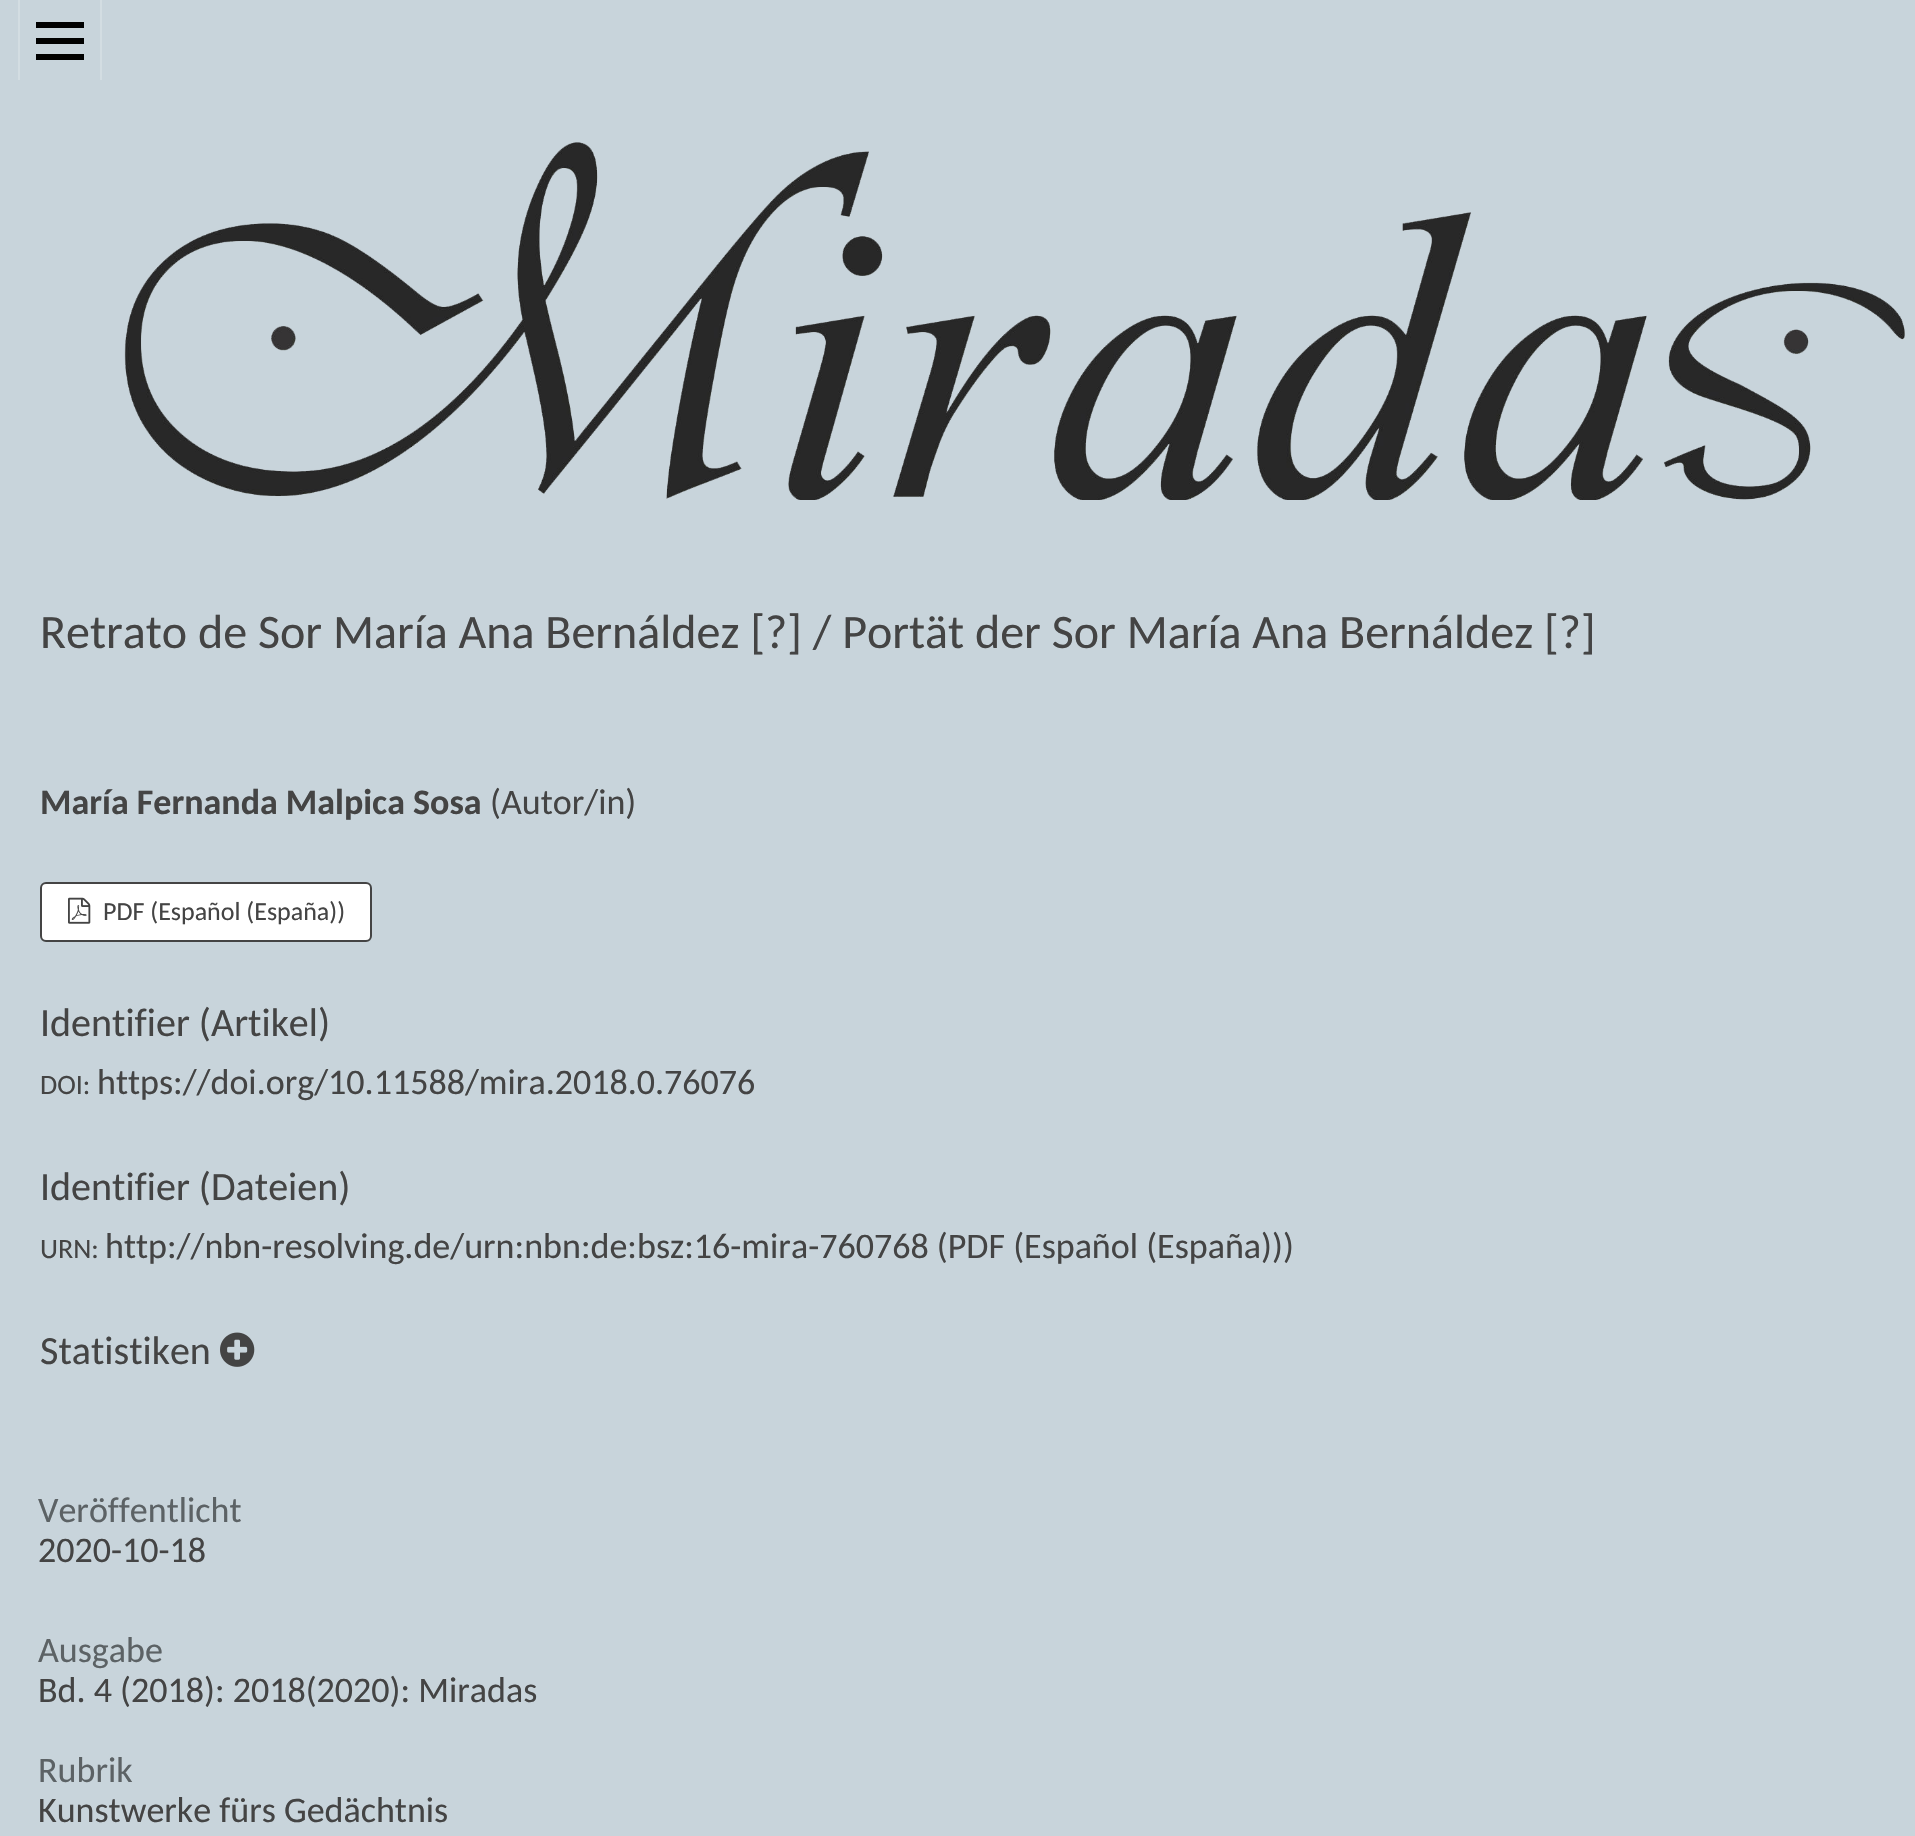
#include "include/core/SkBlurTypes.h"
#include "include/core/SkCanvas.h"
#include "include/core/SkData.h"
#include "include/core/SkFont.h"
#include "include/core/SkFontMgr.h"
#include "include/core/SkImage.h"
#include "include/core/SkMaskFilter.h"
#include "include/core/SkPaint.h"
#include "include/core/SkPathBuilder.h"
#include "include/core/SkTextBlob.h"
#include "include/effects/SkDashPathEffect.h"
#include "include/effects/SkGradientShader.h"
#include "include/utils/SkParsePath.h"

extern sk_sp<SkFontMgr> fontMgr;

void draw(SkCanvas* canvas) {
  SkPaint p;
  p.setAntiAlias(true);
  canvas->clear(SkColorSetRGB(200, 212, 219));
  p.setColor(SkColorSetRGB(211, 221, 226));
  canvas->drawRect(SkRect::MakeLTRB(18, 0, 20, 80), p);
  canvas->drawRect(SkRect::MakeLTRB(100, 0, 102, 80), p);
  p.setColor(SK_ColorBLACK);
  canvas->drawRect(SkRect::MakeLTRB(36, 54, 84, 60), p);
  canvas->drawRect(SkRect::MakeLTRB(36, 22, 84, 28), p);
  canvas->drawRect(SkRect::MakeLTRB(36, 38, 84, 44), p);
  canvas->drawImageRect(SkImages::DeferredFromEncodedData(SkData::MakeFromFileName("images/1.png")), SkRect::MakeLTRB(124, 142, 1905, 500), SkSamplingOptions());
  p.setColor(SK_ColorWHITE);
  canvas->drawRoundRect(SkRect::MakeLTRB(41, 883, 371, 941), 5, 5, p);
  p.setStyle(SkPaint::kStroke_Style);
  p.setStrokeWidth(2);
  p.setColor(SkColorSetRGB(68, 68, 68));
  canvas->drawRoundRect(SkRect::MakeLTRB(41, 883, 371, 941), 5, 5, p);
  canvas->drawImageRect(SkImages::DeferredFromEncodedData(SkData::MakeFromFileName("images/2.png")), SkRect::MakeLTRB(68, 897, 91, 924), SkSamplingOptions());
  canvas->drawImageRect(SkImages::DeferredFromEncodedData(SkData::MakeFromFileName("images/3.png")), SkRect::MakeLTRB(220, 1332, 255, 1367), SkSamplingOptions());
  SkFont font1(fontMgr->matchFamilyStyle("Carlito", SkFontStyle::Normal()), 48);
  font1.setSubpixel(true);
  p.setStyle(SkPaint::kFill_Style);
  canvas->drawString("Retrato de Sor María Ana Bernáldez [?] / Portät der Sor María Ana Bernáldez [?]", 40, 648, font1, p);
  SkFont font2(fontMgr->matchFamilyStyle("Carlito", SkFontStyle::Bold()), 36);
  font2.setSubpixel(true);
  canvas->drawString("María Fernanda Malpica Sosa", 40, 814, font2, p);
  SkFont font3(fontMgr->matchFamilyStyle("Carlito", SkFontStyle::Normal()), 36);
  font3.setSubpixel(true);
  canvas->drawString("(Autor/in)", 490, 814, font3, p);
  SkFont font4(fontMgr->matchFamilyStyle("Carlito", SkFontStyle::Normal()), 26);
  font4.setSubpixel(true);
  canvas->drawString("PDF (Español (España))", 103, 920, font4, p);
  SkFont font5(fontMgr->matchFamilyStyle("Carlito", SkFontStyle::Normal()), 40);
  font5.setSubpixel(true);
  canvas->drawString("Identifier (Artikel)", 40, 1036, font5, p);
  SkFont font6(fontMgr->matchFamilyStyle("Carlito", SkFontStyle::Normal()), 28);
  font6.setSubpixel(true);
  canvas->drawString("DOI:", 40, 1094, font6, p);
  canvas->drawString("https://doi.org/10.11588/mira.2018.0.76076", 97, 1094, font3, p);
  canvas->drawString("Identifier (Dateien)", 40, 1200, font5, p);
  canvas->drawString("URN:", 40, 1258, font6, p);
  canvas->drawString("http://nbn-resolving.de/urn:nbn:de:bsz:16-mira-760768 (PDF (Español (España)))", 105, 1258, font3, p);
  canvas->drawString("Statistiken", 40, 1364, font5, p);
  p.setColor(SkColorSetRGB(92, 98, 101));
  canvas->drawString("Veröffentlicht", 38, 1522, font3, p);
  p.setColor(SkColorSetRGB(68, 68, 68));
  canvas->drawString("2020-10-18", 38, 1562, font3, p);
  p.setColor(SkColorSetRGB(92, 98, 101));
  canvas->drawString("Ausgabe", 38, 1662, font3, p);
  p.setColor(SkColorSetRGB(68, 68, 68));
  canvas->drawString("Bd. 4 (2018): 2018(2020): Miradas", 38, 1702, font3, p);
  p.setColor(SkColorSetRGB(92, 98, 101));
  canvas->drawString("Rubrik", 38, 1782, font3, p);
  p.setColor(SkColorSetRGB(68, 68, 68));
  canvas->drawString("Kunstwerke fürs Gedächtnis", 38, 1822, font3, p);
}
